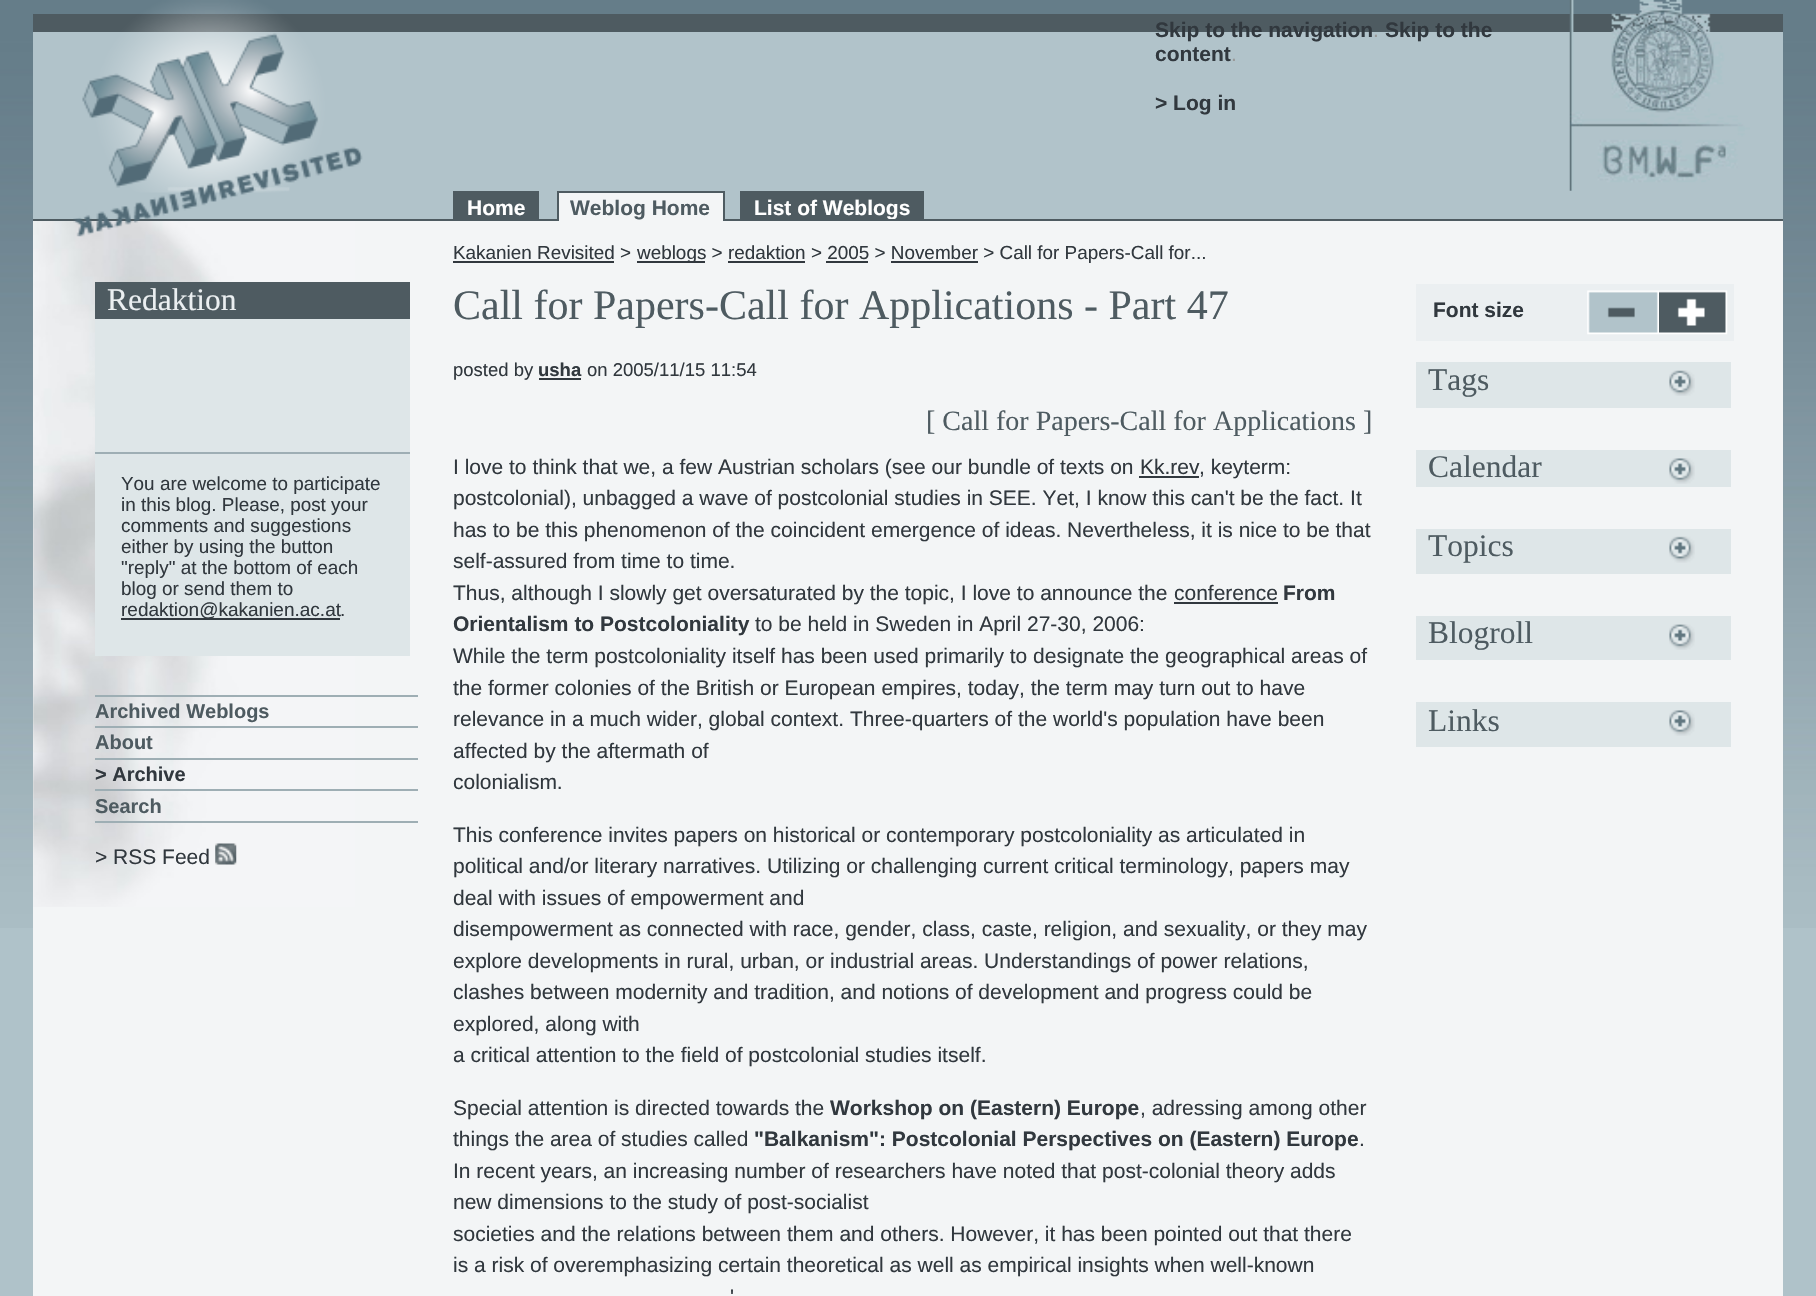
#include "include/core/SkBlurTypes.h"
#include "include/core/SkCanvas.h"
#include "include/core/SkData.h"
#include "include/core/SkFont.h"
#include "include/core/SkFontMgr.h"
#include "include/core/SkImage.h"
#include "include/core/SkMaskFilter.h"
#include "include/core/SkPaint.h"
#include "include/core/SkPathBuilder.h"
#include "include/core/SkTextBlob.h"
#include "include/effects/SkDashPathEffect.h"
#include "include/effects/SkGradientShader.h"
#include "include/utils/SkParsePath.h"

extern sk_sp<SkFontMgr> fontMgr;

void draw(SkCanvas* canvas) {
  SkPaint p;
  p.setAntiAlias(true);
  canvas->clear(SkColorSetRGB(175, 194, 201));
  canvas->drawImageRect(SkImages::DeferredFromEncodedData(SkData::MakeFromFileName("images/1.png")), SkRect::MakeLTRB(0, 0, 1816, 928), SkSamplingOptions());
  p.setColor(SkColorSetRGB(177, 195, 202));
  canvas->drawRect(SkRect::MakeLTRB(33, 32, 1783, 219), p);
  p.setColor(SkColorSetRGB(78, 91, 97));
  canvas->drawRect(SkRect::MakeLTRB(33, 14, 1783, 32), p);
  canvas->drawImageRect(SkImages::DeferredFromEncodedData(SkData::MakeFromFileName("images/3.png")), SkRect::MakeLTRB(1569, 0, 1750, 191), SkSamplingOptions());
  canvas->drawRect(SkRect::MakeLTRB(455, 193, 537, 219), p);
  canvas->drawRect(SkRect::MakeLTRB(453, 191, 539, 193), p);
  canvas->drawRect(SkRect::MakeLTRB(537, 191, 539, 221), p);
  canvas->drawRect(SkRect::MakeLTRB(453, 191, 455, 221), p);
  canvas->drawRect(SkRect::MakeLTRB(557, 191, 725, 193), p);
  canvas->drawRect(SkRect::MakeLTRB(742, 193, 922, 219), p);
  canvas->drawRect(SkRect::MakeLTRB(740, 191, 924, 193), p);
  canvas->drawRect(SkRect::MakeLTRB(922, 191, 924, 221), p);
  canvas->drawRect(SkRect::MakeLTRB(740, 191, 742, 221), p);
  p.setColor(SkColorSetRGB(243, 245, 246));
  canvas->drawRect(SkRect::MakeLTRB(33, 221, 1783, 1296), p);
  canvas->drawImageRect(SkImages::DeferredFromEncodedData(SkData::MakeFromFileName("images/4.png")), SkRect::MakeLTRB(33, 221, 356, 907), SkSamplingOptions());
  p.setColor(SkColorSetRGB(78, 91, 97));
  canvas->drawRect(SkRect::MakeLTRB(95, 282, 410, 319), p);
  p.setColor(SkColorSetRGB(222, 230, 232));
  canvas->drawRect(SkRect::MakeLTRB(95, 319, 410, 452), p);
  canvas->drawRect(SkRect::MakeLTRB(95, 454, 410, 656), p);
  p.setColor(SkColorSetRGB(158, 174, 180));
  canvas->drawRect(SkRect::MakeLTRB(95, 452, 410, 454), p);
  p.setColor(SkColorSetRGB(49, 56, 62));
  canvas->drawRect(SkRect::MakeLTRB(121, 618, 340, 620), p);
  p.setColor(SkColorSetRGB(158, 174, 180));
  canvas->drawRect(SkRect::MakeLTRB(95, 695, 418, 697), p);
  canvas->drawRect(SkRect::MakeLTRB(95, 726, 418, 728), p);
  canvas->drawRect(SkRect::MakeLTRB(95, 758, 418, 760), p);
  canvas->drawRect(SkRect::MakeLTRB(95, 789, 418, 791), p);
  canvas->drawRect(SkRect::MakeLTRB(95, 821, 418, 823), p);
  canvas->drawImageRect(SkImages::DeferredFromEncodedData(SkData::MakeFromFileName("images/5.png")), SkRect::MakeLTRB(215, 843, 237, 865), SkSamplingOptions());
  p.setColor(SkColorSetRGB(49, 56, 62));
  canvas->drawRect(SkRect::MakeLTRB(453, 261, 614, 263), p);
  canvas->drawRect(SkRect::MakeLTRB(637, 261, 705, 263), p);
  canvas->drawRect(SkRect::MakeLTRB(728, 261, 805, 263), p);
  canvas->drawRect(SkRect::MakeLTRB(826, 261, 868, 263), p);
  canvas->drawRect(SkRect::MakeLTRB(891, 261, 978, 263), p);
  canvas->drawRect(SkRect::MakeLTRB(539, 378, 581, 380), p);
  canvas->drawRect(SkRect::MakeLTRB(1139, 476, 1199, 478), p);
  canvas->drawRect(SkRect::MakeLTRB(1174, 602, 1278, 604), p);
  p.setColor(SkColorSetRGB(235, 239, 241));
  canvas->drawRect(SkRect::MakeLTRB(1416, 284, 1734, 341), p);
  canvas->drawImageRect(SkImages::DeferredFromEncodedData(SkData::MakeFromFileName("images/6.png")), SkRect::MakeLTRB(1587, 290, 1659, 335), SkSamplingOptions());
  canvas->drawImageRect(SkImages::DeferredFromEncodedData(SkData::MakeFromFileName("images/7.png")), SkRect::MakeLTRB(1659, 290, 1728, 335), SkSamplingOptions());
  p.setColor(SkColorSetRGB(222, 230, 232));
  canvas->drawRect(SkRect::MakeLTRB(1416, 362, 1731, 408), p);
  canvas->drawImageRect(SkImages::DeferredFromEncodedData(SkData::MakeFromFileName("images/8.png")), SkRect::MakeLTRB(1669, 370, 1695, 396), SkSamplingOptions());
  canvas->drawRect(SkRect::MakeLTRB(1416, 450, 1731, 487), p);
  canvas->drawImageRect(SkImages::DeferredFromEncodedData(SkData::MakeFromFileName("images/9.png")), SkRect::MakeLTRB(1669, 458, 1695, 484), SkSamplingOptions());
  canvas->drawRect(SkRect::MakeLTRB(1416, 529, 1731, 574), p);
  canvas->drawImageRect(SkImages::DeferredFromEncodedData(SkData::MakeFromFileName("images/10.png")), SkRect::MakeLTRB(1669, 536, 1695, 563), SkSamplingOptions());
  canvas->drawRect(SkRect::MakeLTRB(1416, 616, 1731, 660), p);
  canvas->drawImageRect(SkImages::DeferredFromEncodedData(SkData::MakeFromFileName("images/11.png")), SkRect::MakeLTRB(1669, 624, 1695, 650), SkSamplingOptions());
  canvas->drawRect(SkRect::MakeLTRB(1416, 702, 1731, 747), p);
  canvas->drawImageRect(SkImages::DeferredFromEncodedData(SkData::MakeFromFileName("images/9.png")), SkRect::MakeLTRB(1669, 710, 1695, 736), SkSamplingOptions());
  SkFont font1(fontMgr->matchFamilyStyle("Liberation Sans", SkFontStyle::Bold()), 21);
  font1.setSubpixel(true);
  p.setColor(SkColorSetRGB(49, 56, 62));
  canvas->drawString("Skip to the navigation", 1155, 37, font1, p);
  SkFont font2(fontMgr->matchFamilyStyle("Liberation Sans", SkFontStyle::Normal()), 21);
  font2.setSubpixel(true);
  p.setColor(SkColorSetRGB(153, 153, 153));
  canvas->drawString(".", 1373, 37, font2, p);
  p.setColor(SkColorSetRGB(49, 56, 62));
  canvas->drawString("Skip to the", 1385, 37, font1, p);
  canvas->drawString("content", 1155, 61, font1, p);
  p.setColor(SkColorSetRGB(153, 153, 153));
  canvas->drawString(".", 1231, 61, font2, p);
  p.setColor(SkColorSetRGB(49, 56, 62));
  canvas->drawString("> Log in", 1155, 110, font1, p);
  p.setColor(SK_ColorWHITE);
  canvas->drawString("Home", 467, 215, font1, p);
  canvas->drawString("List of Weblogs", 754, 215, font1, p);
  p.setColor(SkColorSetRGB(78, 91, 97));
  canvas->drawRect(SkRect::MakeLTRB(33, 219, 1783, 221), p);
  canvas->drawImageRect(SkImages::DeferredFromEncodedData(SkData::MakeFromFileName("images/2.png")), SkRect::MakeLTRB(73, 0, 363, 237), SkSamplingOptions());
  p.setColor(SkColorSetRGB(243, 245, 246));
  canvas->drawRect(SkRect::MakeLTRB(559, 193, 723, 221), p);
  p.setColor(SkColorSetRGB(78, 91, 97));
  canvas->drawString("Weblog Home", 570, 215, font1, p);
  canvas->drawRect(SkRect::MakeLTRB(557, 191, 559, 221), p);
  canvas->drawRect(SkRect::MakeLTRB(723, 191, 725, 221), p);
  SkFont font3(fontMgr->matchFamilyStyle("Liberation Serif", SkFontStyle::Normal()), 31.5f);
  font3.setSubpixel(true);
  p.setColor(SkColorSetRGB(235, 239, 241));
  canvas->drawString("Redaktion", 107, 310, font3, p);
  SkFont font4(fontMgr->matchFamilyStyle("Liberation Sans", SkFontStyle::Normal()), 18.9f);
  font4.setSubpixel(true);
  p.setColor(SkColorSetRGB(49, 56, 62));
  canvas->drawString("You are welcome to participate", 121, 490, font4, p);
  canvas->drawString("in this blog. Please, post your", 121, 511, font4, p);
  canvas->drawString("comments and suggestions", 121, 532, font4, p);
  canvas->drawString("either by using the button", 121, 553, font4, p);
  canvas->drawString("\"reply\" at the bottom of each", 121, 574, font4, p);
  canvas->drawString("blog or send them to", 121, 595, font4, p);
  SkFont font5(fontMgr->matchFamilyStyle("Liberation Sans", SkFontStyle::Normal()), 19);
  font5.setSubpixel(true);
  canvas->drawString("redaktion@kakanien.ac.at", 121, 616, font5, p);
  canvas->drawString(".", 340, 616, font4, p);
  SkFont font6(fontMgr->matchFamilyStyle("Liberation Sans", SkFontStyle::Bold()), 20);
  font6.setSubpixel(true);
  p.setColor(SkColorSetRGB(78, 91, 97));
  canvas->drawString("Archived Weblogs", 95, 718, font6, p);
  canvas->drawString("About", 95, 749, font6, p);
  p.setColor(SkColorSetRGB(49, 56, 62));
  canvas->drawString("> Archive", 95, 781, font6, p);
  p.setColor(SkColorSetRGB(78, 91, 97));
  canvas->drawString("Search", 95, 813, font6, p);
  p.setColor(SkColorSetRGB(49, 56, 62));
  canvas->drawString("> RSS Feed", 95, 864, font2, p);
  canvas->drawString("Kakanien Revisited >", 453, 259, font4, p);
  canvas->drawString("weblogs > redaktion > 2005 > November > Call for Papers-Call for...", 637, 259, font4, p);
  SkFont font7(fontMgr->matchFamilyStyle("Liberation Serif", SkFontStyle::Normal()), 42);
  font7.setSubpixel(true);
  p.setColor(SkColorSetRGB(78, 91, 97));
  canvas->drawString("Call for Papers-Call for Applications - Part 47", 453, 319, font7, p);
  SkFont font8(fontMgr->matchFamilyStyle("Liberation Sans", SkFontStyle::Normal()), 18.5f);
  font8.setSubpixel(true);
  p.setColor(SkColorSetRGB(49, 56, 62));
  canvas->drawString("posted by", 453, 376, font8, p);
  SkFont font9(fontMgr->matchFamilyStyle("Liberation Sans", SkFontStyle::Bold()), 18.5f);
  font9.setSubpixel(true);
  canvas->drawString("usha", 538, 376, font9, p);
  canvas->drawString("on 2005/11/15 11:54", 587, 376, font8, p);
  SkFont font10(fontMgr->matchFamilyStyle("Liberation Serif", SkFontStyle::Normal()), 28);
  font10.setSubpixel(true);
  p.setColor(SkColorSetRGB(78, 91, 97));
  canvas->drawString("[ Call for Papers-Call for Applications ]", 926, 430, font10, p);
  p.setColor(SkColorSetRGB(49, 56, 62));
  canvas->drawString("I love to think that we, a few Austrian scholars (see our bundle of texts on", 453, 474, font2, p);
  canvas->drawString("Kk.rev", 1140, 474, font2, p);
  canvas->drawString(", keyterm:", 1199, 474, font2, p);
  canvas->drawString("postcolonial), unbagged a wave of postcolonial studies in SEE. Yet, I know this can't be the fact. It", 453, 505, font2, p);
  canvas->drawString("has to be this phenomenon of the coincident emergence of ideas. Nevertheless, it is nice to be that", 453, 537, font2, p);
  canvas->drawString("self-assured from time to time.", 453, 568, font2, p);
  canvas->drawString("Thus, although I slowly get oversaturated by the topic, I love to announce the", 453, 600, font2, p);
  canvas->drawString("conference", 1174, 600, font2, p);
  canvas->drawString("From", 1283, 600, font1, p);
  canvas->drawString("Orientalism to Postcoloniality", 453, 631, font1, p);
  canvas->drawString("to be held in Sweden in April 27-30, 2006:", 755, 631, font2, p);
  canvas->drawString("While the term postcoloniality itself has been used primarily to designate the geographical areas of", 453, 663, font2, p);
  canvas->drawString("the former colonies of the British or European empires, today, the term may turn out to have", 453, 695, font2, p);
  canvas->drawString("relevance in a much wider, global context. Three-quarters of the world's population have been", 453, 726, font2, p);
  canvas->drawString("affected by the aftermath of", 453, 758, font2, p);
  canvas->drawString("colonialism.", 453, 789, font2, p);
  canvas->drawString("This conference invites papers on historical or contemporary postcoloniality as articulated in", 453, 842, font2, p);
  canvas->drawString("political and/or literary narratives. Utilizing or challenging current critical terminology, papers may", 453, 873, font2, p);
  canvas->drawString("deal with issues of empowerment and", 453, 905, font2, p);
  canvas->drawString("disempowerment as connected with race, gender, class, caste, religion, and sexuality, or they may", 453, 936, font2, p);
  canvas->drawString("explore developments in rural, urban, or industrial areas. Understandings of power relations,", 453, 968, font2, p);
  canvas->drawString("clashes between modernity and tradition, and notions of development and progress could be", 453, 999, font2, p);
  canvas->drawString("explored, along with", 453, 1031, font2, p);
  canvas->drawString("a critical attention to the field of postcolonial studies itself.", 453, 1062, font2, p);
  canvas->drawString("Special attention is directed towards the", 453, 1115, font2, p);
  canvas->drawString("Workshop on (Eastern) Europe", 830, 1115, font1, p);
  canvas->drawString(", adressing among other", 1140, 1115, font2, p);
  canvas->drawString("things the area of studies called", 453, 1146, font2, p);
  canvas->drawString("\"Balkanism\": Postcolonial Perspectives on (Eastern) Europe", 754, 1146, font1, p);
  canvas->drawString(".", 1359, 1146, font2, p);
  canvas->drawString("In recent years, an increasing number of researchers have noted that post-colonial theory adds", 453, 1178, font2, p);
  canvas->drawString("new dimensions to the study of post-socialist", 453, 1209, font2, p);
  canvas->drawString("societies and the relations between them and others. However, it has been pointed out that there", 453, 1241, font2, p);
  canvas->drawString("is a risk of overemphasizing certain theoretical as well as empirical insights when well-known", 453, 1272, font2, p);
  canvas->drawString("'", 730, 1304, font2, p);
  canvas->drawString("Font size", 1433, 317, font1, p);
  p.setColor(SkColorSetRGB(78, 91, 97));
  canvas->drawString("Tags", 1428, 390, font3, p);
  canvas->drawString("Calendar", 1428, 477, font3, p);
  canvas->drawString("Topics", 1428, 556, font3, p);
  canvas->drawString("Blogroll", 1428, 643, font3, p);
  canvas->drawString("Links", 1428, 731, font3, p);
}
